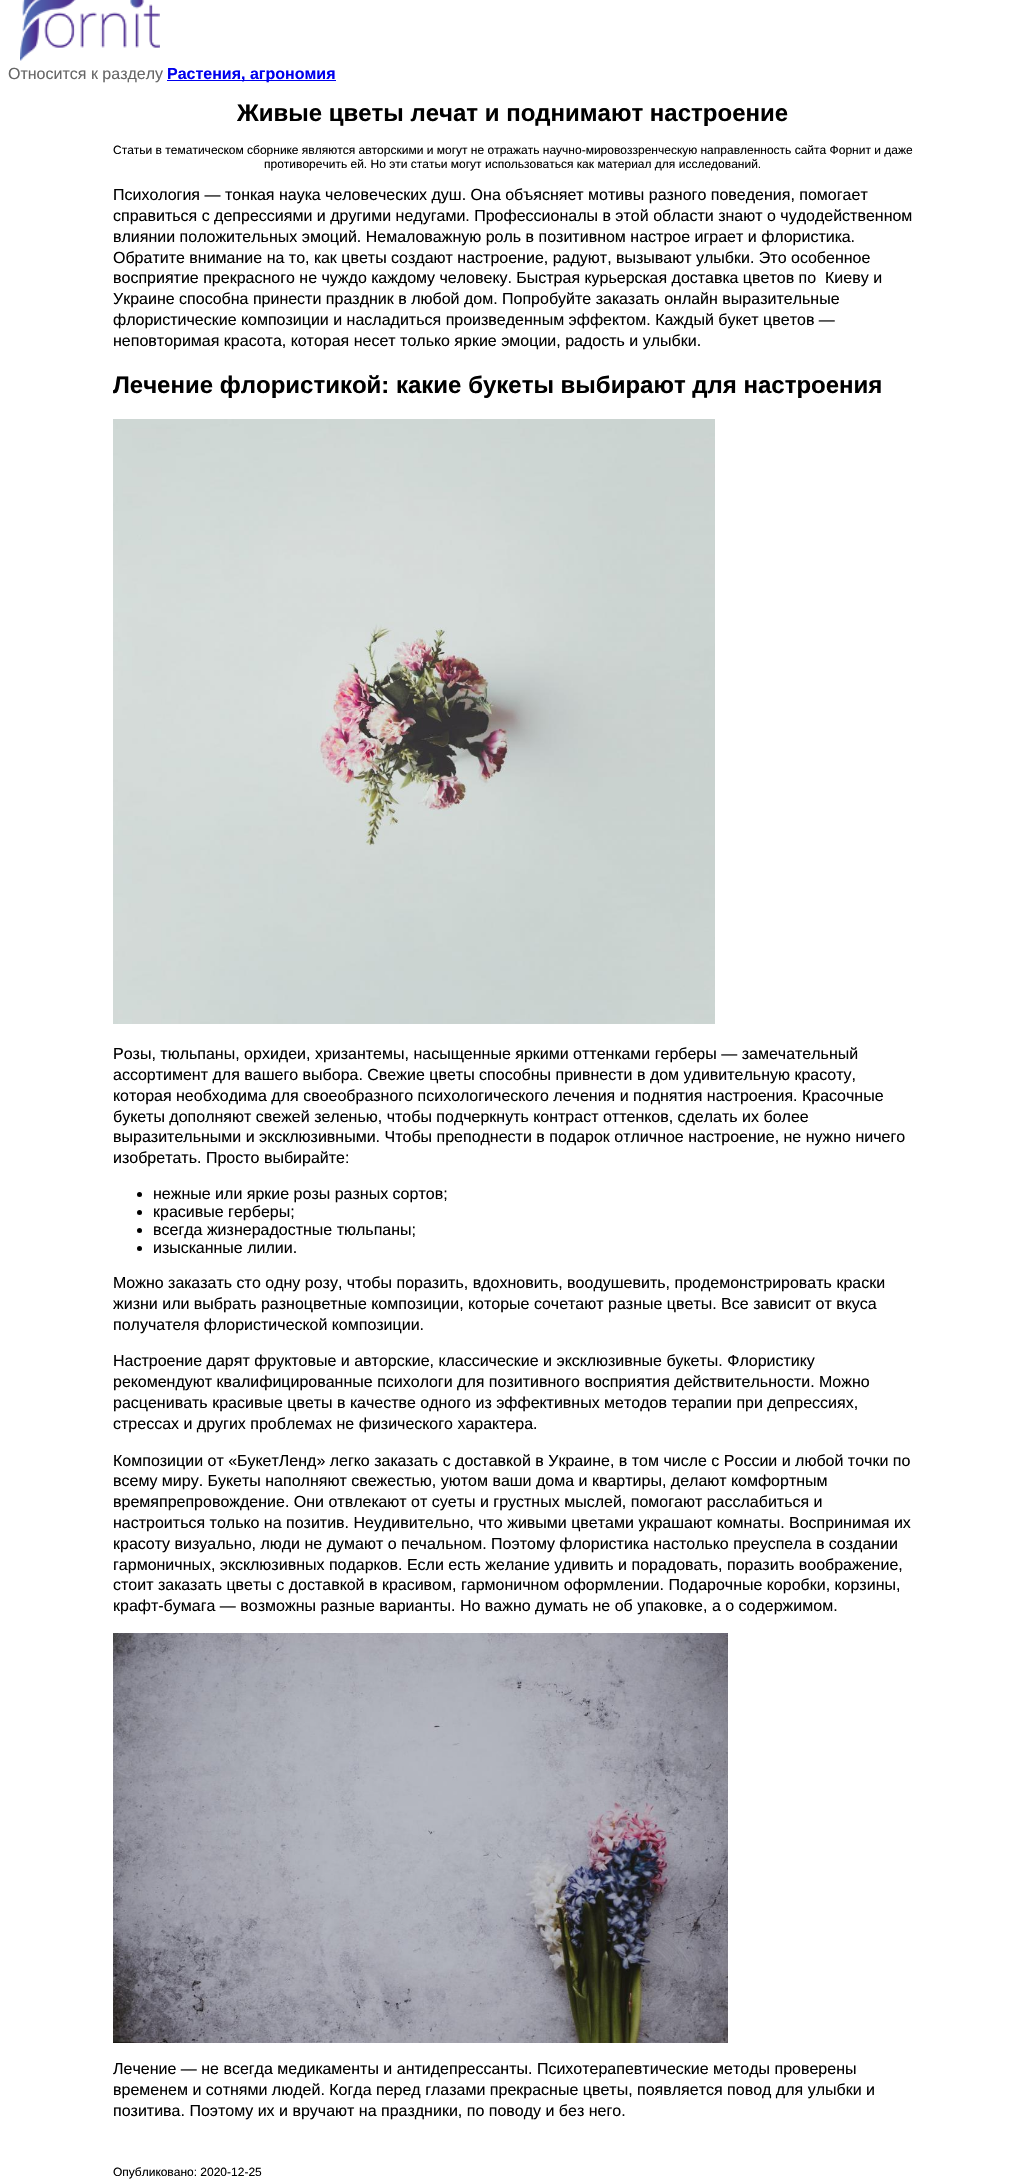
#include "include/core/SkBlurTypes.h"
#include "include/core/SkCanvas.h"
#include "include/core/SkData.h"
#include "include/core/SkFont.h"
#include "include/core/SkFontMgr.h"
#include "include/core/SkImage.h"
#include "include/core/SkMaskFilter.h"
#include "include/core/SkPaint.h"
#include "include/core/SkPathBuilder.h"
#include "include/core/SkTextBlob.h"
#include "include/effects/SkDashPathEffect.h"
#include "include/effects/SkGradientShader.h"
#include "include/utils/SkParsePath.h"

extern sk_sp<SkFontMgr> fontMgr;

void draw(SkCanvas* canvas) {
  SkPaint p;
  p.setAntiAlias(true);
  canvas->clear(SK_ColorWHITE);
  canvas->drawImageRect(SkImages::DeferredFromEncodedData(SkData::MakeFromFileName("images/1.png")), SkRect::MakeLTRB(20, 0, 160, 61), SkSamplingOptions());
  p.setColor(SkColorSetRGB(0, 0, 238));
  canvas->drawRect(SkRect::MakeLTRB(167, 80, 336, 81), p);
  canvas->drawImageRect(SkImages::DeferredFromEncodedData(SkData::MakeFromFileName("images/2.png")), SkRect::MakeLTRB(113, 419, 715, 1024), SkSamplingOptions());
  p.setColor(SK_ColorBLACK);
  canvas->drawCircle(139.5f, 1194.5f, 2.5f, p);
  canvas->drawCircle(139.5f, 1212.5f, 2.5f, p);
  canvas->drawCircle(139.5f, 1230.5f, 2.5f, p);
  canvas->drawCircle(139.5f, 1248.5f, 2.5f, p);
  canvas->drawImageRect(SkImages::DeferredFromEncodedData(SkData::MakeFromFileName("images/3.png")), SkRect::MakeLTRB(113, 1633, 728, 2043), SkSamplingOptions());
  SkFont font1(fontMgr->matchFamilyStyle("Liberation Sans", SkFontStyle::Normal()), 16);
  font1.setSubpixel(true);
  p.setColor(SkColorSetRGB(102, 102, 102));
  canvas->drawString("Относится к разделу", 8, 79, font1, p);
  SkFont font2(fontMgr->matchFamilyStyle("Liberation Sans", SkFontStyle::Bold()), 16);
  font2.setSubpixel(true);
  p.setColor(SkColorSetRGB(0, 0, 238));
  canvas->drawString("Растения, агрономия", 167, 79, font2, p);
  SkFont font3(fontMgr->matchFamilyStyle("Liberation Sans", SkFontStyle::Bold()), 24);
  font3.setSubpixel(true);
  p.setColor(SK_ColorBLACK);
  canvas->drawString("Живые цветы лечат и поднимают настроение", 237, 121, font3, p);
  SkFont font4(fontMgr->matchFamilyStyle("Liberation Sans", SkFontStyle::Normal()), 12);
  font4.setSubpixel(true);
  canvas->drawString("Статьи в тематическом сборнике являются авторскими и могут не отражать научно-мировоззренческую направленность сайта Форнит и даже", 113, 154, font4, p);
  canvas->drawString("противоречить ей. Но эти статьи могут использоваться как материал для исследований.", 264, 168, font4, p);
  canvas->drawString("Психология — тонкая наука человеческих душ. Она объясняет мотивы разного поведения, помогает", 113, 200, font1, p);
  canvas->drawString("справиться с депрессиями и другими недугами. Профессионалы в этой области знают о чудодейственном", 113, 221, font1, p);
  canvas->drawString("влиянии положительных эмоций. Немаловажную роль в позитивном настрое играет и флористика.", 113, 242, font1, p);
  canvas->drawString("Обратите внимание на то, как цветы создают настроение, радуют, вызывают улыбки. Это особенное", 113, 263, font1, p);
  canvas->drawString("восприятие прекрасного не чуждо каждому человеку. Быстрая курьерская доставка цветов по  Киеву и", 113, 283, font1, p);
  canvas->drawString("Украине способна принести праздник в любой дом. Попробуйте заказать онлайн выразительные", 113, 304, font1, p);
  canvas->drawString("флористические композиции и насладиться произведенным эффектом. Каждый букет цветов —", 113, 325, font1, p);
  canvas->drawString("неповторимая красота, которая несет только яркие эмоции, радость и улыбки.", 113, 346, font1, p);
  canvas->drawString("Лечение флористикой: какие букеты выбирают для настроения", 113, 393, font3, p);
  canvas->drawString("Розы, тюльпаны, орхидеи, хризантемы, насыщенные яркими оттенками герберы — замечательный", 113, 1059, font1, p);
  canvas->drawString("ассортимент для вашего выбора. Свежие цветы способны привнести в дом удивительную красоту,", 113, 1080, font1, p);
  canvas->drawString("которая необходима для своеобразного психологического лечения и поднятия настроения. Красочные", 113, 1101, font1, p);
  canvas->drawString("букеты дополняют свежей зеленью, чтобы подчеркнуть контраст оттенков, сделать их более", 113, 1122, font1, p);
  canvas->drawString("выразительными и эксклюзивными. Чтобы преподнести в подарок отличное настроение, не нужно ничего", 113, 1142, font1, p);
  canvas->drawString("изобретать. Просто выбирайте:", 113, 1163, font1, p);
  canvas->drawString("нежные или яркие розы разных сортов;", 153, 1199, font1, p);
  canvas->drawString("красивые герберы;", 153, 1217, font1, p);
  canvas->drawString("всегда жизнерадостные тюльпаны;", 153, 1235, font1, p);
  canvas->drawString("изысканные лилии.", 153, 1253, font1, p);
  canvas->drawString("Можно заказать сто одну розу, чтобы поразить, вдохновить, воодушевить, продемонстрировать краски", 113, 1288, font1, p);
  canvas->drawString("жизни или выбрать разноцветные композиции, которые сочетают разные цветы. Все зависит от вкуса", 113, 1309, font1, p);
  canvas->drawString("получателя флористической композиции.", 113, 1330, font1, p);
  canvas->drawString("Настроение дарят фруктовые и авторские, классические и эксклюзивные букеты. Флористику", 113, 1366, font1, p);
  canvas->drawString("рекомендуют квалифицированные психологи для позитивного восприятия действительности. Можно", 113, 1387, font1, p);
  canvas->drawString("расценивать красивые цветы в качестве одного из эффективных методов терапии при депрессиях,", 113, 1408, font1, p);
  canvas->drawString("стрессах и других проблемах не физического характера.", 113, 1429, font1, p);
  canvas->drawString("Композиции от «БукетЛенд» легко заказать с доставкой в Украине, в том числе с России и любой точки по", 113, 1466, font1, p);
  canvas->drawString("всему миру. Букеты наполняют свежестью, уютом ваши дома и квартиры, делают комфортным", 113, 1486, font1, p);
  canvas->drawString("времяпрепровождение. Они отвлекают от суеты и грустных мыслей, помогают расслабиться и", 113, 1507, font1, p);
  canvas->drawString("настроиться только на позитив. Неудивительно, что живыми цветами украшают комнаты. Воспринимая их", 113, 1528, font1, p);
  canvas->drawString("красоту визуально, люди не думают о печальном. Поэтому флористика настолько преуспела в создании", 113, 1549, font1, p);
  canvas->drawString("гармоничных, эксклюзивных подарков. Если есть желание удивить и порадовать, поразить воображение,", 113, 1570, font1, p);
  canvas->drawString("стоит заказать цветы с доставкой в красивом, гармоничном оформлении. Подарочные коробки, корзины,", 113, 1590, font1, p);
  canvas->drawString("крафт-бумага — возможны разные варианты. Но важно думать не об упаковке, а о содержимом.", 113, 1611, font1, p);
  canvas->drawString("Лечение — не всегда медикаменты и антидепрессанты. Психотерапевтические методы проверены", 113, 2074, font1, p);
  canvas->drawString("временем и сотнями людей. Когда перед глазами прекрасные цветы, появляется повод для улыбки и", 113, 2095, font1, p);
  canvas->drawString("позитива. Поэтому их и вручают на праздники, по поводу и без него.", 113, 2116, font1, p);
  canvas->drawString("Опубликовано: 2020-12-25", 113, 2176, font4, p);
}
